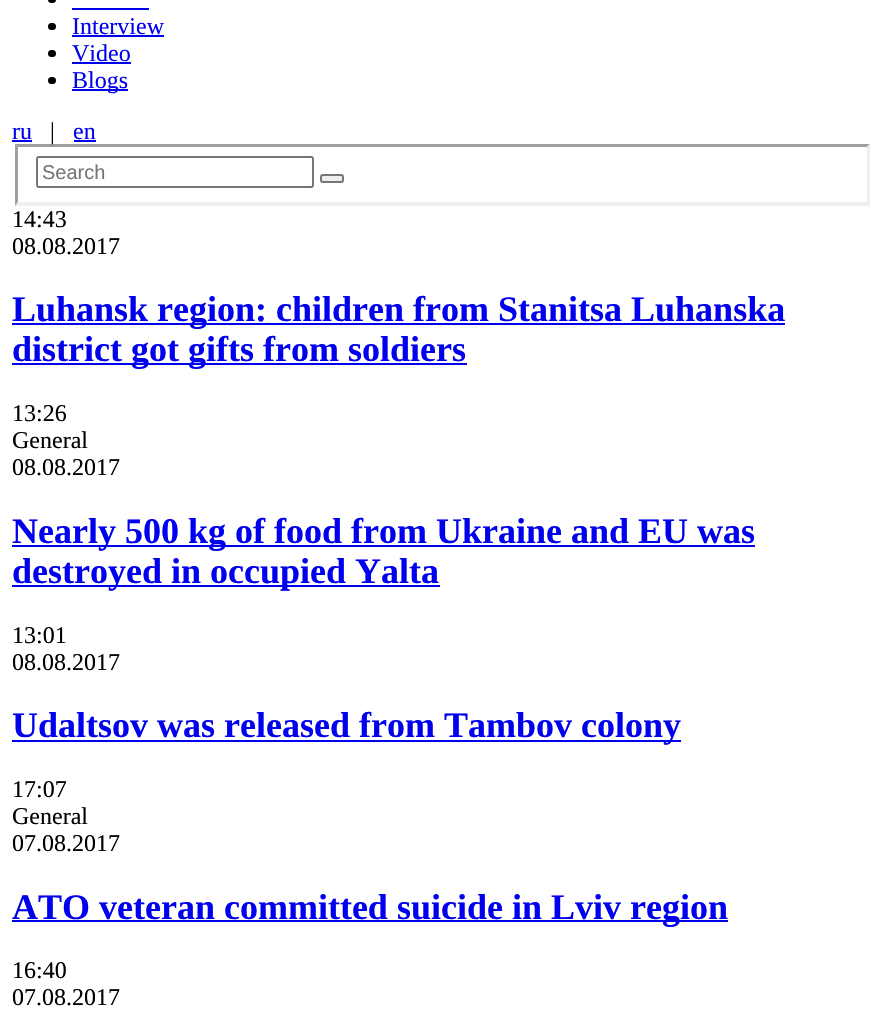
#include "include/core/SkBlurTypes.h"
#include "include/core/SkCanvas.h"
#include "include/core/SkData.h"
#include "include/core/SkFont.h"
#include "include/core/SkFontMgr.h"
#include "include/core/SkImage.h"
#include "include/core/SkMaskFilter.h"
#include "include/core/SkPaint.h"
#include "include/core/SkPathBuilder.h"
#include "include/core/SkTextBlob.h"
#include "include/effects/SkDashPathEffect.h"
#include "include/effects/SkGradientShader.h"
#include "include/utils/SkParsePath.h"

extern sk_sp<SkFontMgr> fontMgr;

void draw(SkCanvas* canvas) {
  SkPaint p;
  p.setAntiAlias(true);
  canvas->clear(SK_ColorWHITE);
  p.setColor(SK_ColorBLACK);
  canvas->drawRoundRect(SkRect::MakeLTRB(48, -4, 56, 3), 3.5f, 3.5f, p);
  p.setColor(SkColorSetRGB(0, 0, 238));
  canvas->drawRect(SkRect::MakeLTRB(72, 8, 149, 10), p);
  p.setColor(SK_ColorBLACK);
  canvas->drawRoundRect(SkRect::MakeLTRB(48, 23, 56, 30), 3.5f, 3.5f, p);
  p.setColor(SkColorSetRGB(0, 0, 238));
  canvas->drawRect(SkRect::MakeLTRB(72, 35, 164, 37), p);
  p.setColor(SK_ColorBLACK);
  canvas->drawRoundRect(SkRect::MakeLTRB(48, 50, 56, 57), 3.5f, 3.5f, p);
  p.setColor(SkColorSetRGB(0, 0, 238));
  canvas->drawRect(SkRect::MakeLTRB(72, 62, 131, 64), p);
  p.setColor(SK_ColorBLACK);
  canvas->drawRoundRect(SkRect::MakeLTRB(48, 77, 56, 84), 3.5f, 3.5f, p);
  p.setColor(SkColorSetRGB(0, 0, 238));
  canvas->drawRect(SkRect::MakeLTRB(72, 89, 128, 91), p);
  canvas->drawRect(SkRect::MakeLTRB(12, 140, 32, 142), p);
  canvas->drawRect(SkRect::MakeLTRB(74, 140, 96, 142), p);
  p.setColor(SkColorSetRGB(159, 159, 159));
  canvas->drawPath(SkPathBuilder().moveTo(15, 144).lineTo(870, 144).lineTo(867, 147).lineTo(18, 147).close().detach(), p);
  p.setColor(SkColorSetRGB(239, 239, 239));
  canvas->drawPath(SkPathBuilder().moveTo(870, 144).lineTo(870, 206).lineTo(867, 202).lineTo(867, 147).close().detach(), p);
  canvas->drawPath(SkPathBuilder().moveTo(870, 206).lineTo(15, 206).lineTo(18, 202).lineTo(867, 202).close().detach(), p);
  p.setColor(SkColorSetRGB(159, 159, 159));
  canvas->drawPath(SkPathBuilder().moveTo(15, 206).lineTo(15, 144).lineTo(18, 147).lineTo(18, 202).close().detach(), p);
  p.setStyle(SkPaint::kStroke_Style);
  p.setStrokeWidth(2);
  p.setColor(SkColorSetRGB(118, 118, 118));
  canvas->drawRoundRect(SkRect::MakeLTRB(37, 157, 313, 187), 2, 2, p);
  p.setStyle(SkPaint::kFill_Style);
  p.setColor(SkColorSetRGB(239, 239, 239));
  canvas->drawRoundRect(SkRect::MakeLTRB(321, 175, 343, 182), 2, 2, p);
  p.setStyle(SkPaint::kStroke_Style);
  p.setColor(SkColorSetRGB(118, 118, 118));
  canvas->drawRoundRect(SkRect::MakeLTRB(321, 175, 343, 182), 2, 2, p);
  p.setStyle(SkPaint::kFill_Style);
  p.setColor(SkColorSetRGB(0, 0, 238));
  canvas->drawRect(SkRect::MakeLTRB(12, 323, 785, 325), p);
  canvas->drawRect(SkRect::MakeLTRB(12, 363, 467, 365), p);
  canvas->drawRect(SkRect::MakeLTRB(12, 545, 755, 547), p);
  canvas->drawRect(SkRect::MakeLTRB(12, 585, 440, 587), p);
  canvas->drawRect(SkRect::MakeLTRB(12, 740, 681, 742), p);
  canvas->drawRect(SkRect::MakeLTRB(12, 920, 728, 922), p);
  SkFont font1(fontMgr->matchFamilyStyle("Liberation Serif", SkFontStyle::Normal()), 24);
  font1.setSubpixel(true);
  canvas->drawString("Interview", 72, 34, font1, p);
  canvas->drawString("Video", 72, 61, font1, p);
  canvas->drawString("Blogs", 72, 88, font1, p);
  canvas->drawString("ru", 12, 139, font1, p);
  p.setColor(SK_ColorBLACK);
  canvas->drawString("|", 50, 139, font1, p);
  p.setColor(SkColorSetRGB(0, 0, 238));
  canvas->drawString("en", 73, 139, font1, p);
  SkFont font2(fontMgr->matchFamilyStyle("Liberation Sans", SkFontStyle::Normal()), 20);
  font2.setSubpixel(true);
  p.setColor(SkColorSetRGB(117, 117, 117));
  canvas->drawString("Search", 42, 179, font2, p);
  p.setColor(SK_ColorBLACK);
  canvas->drawString("14:43", 12, 227, font1, p);
  canvas->drawString("08.08.2017", 12, 254, font1, p);
  SkFont font3(fontMgr->matchFamilyStyle("Liberation Serif", SkFontStyle::Bold()), 36);
  font3.setSubpixel(true);
  p.setColor(SkColorSetRGB(0, 0, 238));
  canvas->drawString("Luhansk region: children from Stanitsa Luhanska", 12, 321, font3, p);
  canvas->drawString("district got gifts from soldiers", 12, 361, font3, p);
  p.setColor(SK_ColorBLACK);
  canvas->drawString("13:26", 12, 421, font1, p);
  canvas->drawString("General", 12, 448, font1, p);
  canvas->drawString("08.08.2017", 12, 475, font1, p);
  p.setColor(SkColorSetRGB(0, 0, 238));
  canvas->drawString("Nearly 500 kg of food from Ukraine and EU was", 12, 543, font3, p);
  canvas->drawString("destroyed in occupied Yalta", 12, 583, font3, p);
  p.setColor(SK_ColorBLACK);
  canvas->drawString("13:01", 12, 643, font1, p);
  canvas->drawString("08.08.2017", 12, 670, font1, p);
  p.setColor(SkColorSetRGB(0, 0, 238));
  canvas->drawString("Udaltsov was released from Tambov colony", 12, 737, font3, p);
  p.setColor(SK_ColorBLACK);
  canvas->drawString("17:07", 12, 797, font1, p);
  canvas->drawString("General", 12, 824, font1, p);
  canvas->drawString("07.08.2017", 12, 851, font1, p);
  p.setColor(SkColorSetRGB(0, 0, 238));
  canvas->drawString("ATO veteran committed suicide in Lviv region", 12, 919, font3, p);
  p.setColor(SK_ColorBLACK);
  canvas->drawString("16:40", 12, 978, font1, p);
  canvas->drawString("07.08.2017", 12, 1005, font1, p);
}
